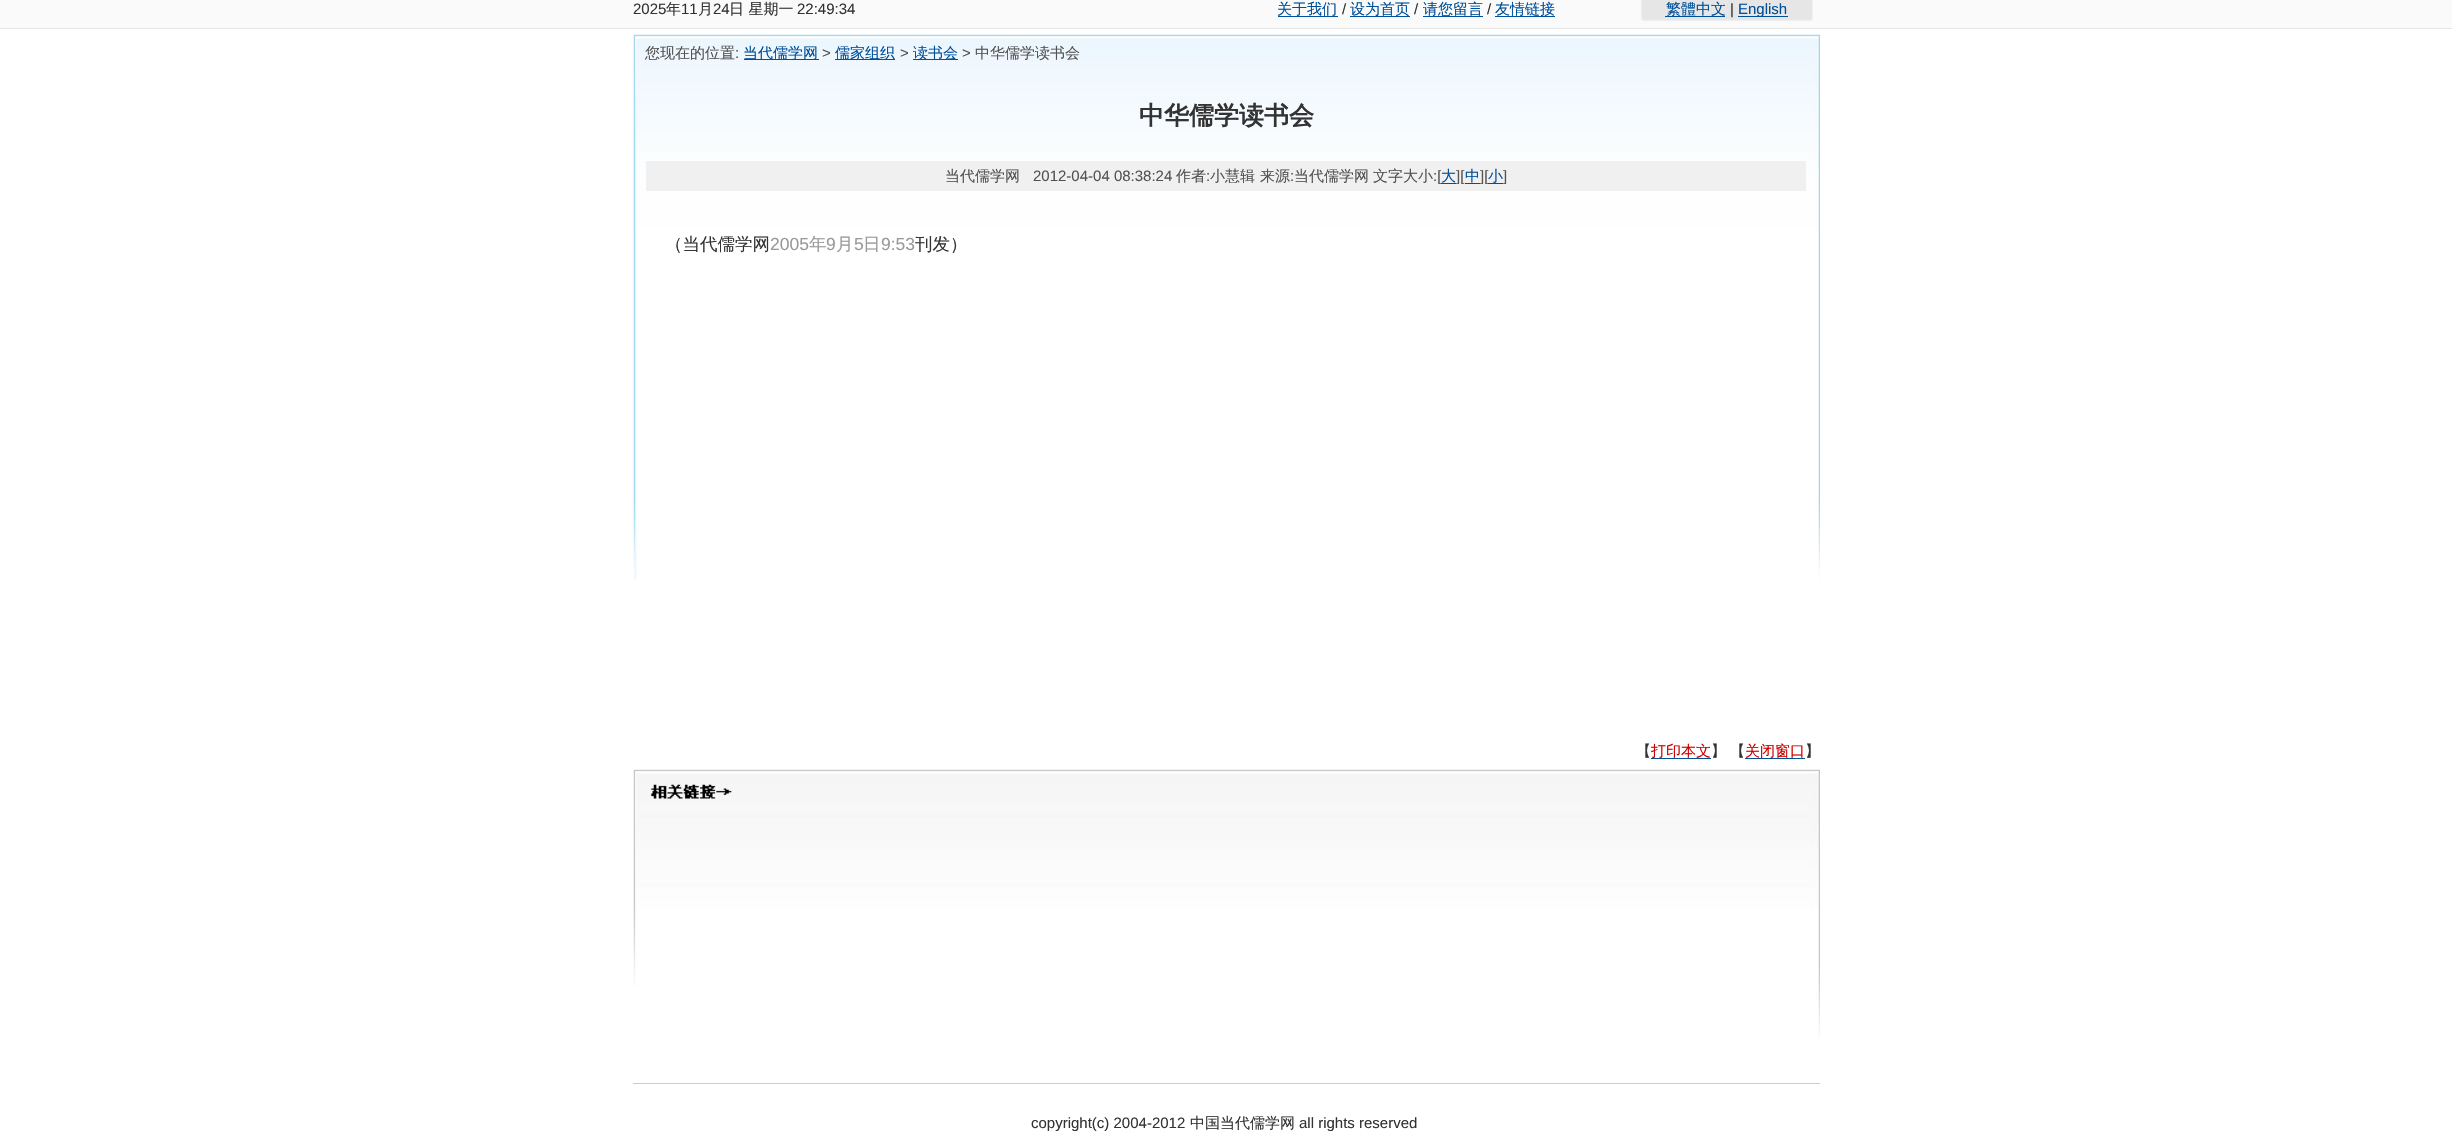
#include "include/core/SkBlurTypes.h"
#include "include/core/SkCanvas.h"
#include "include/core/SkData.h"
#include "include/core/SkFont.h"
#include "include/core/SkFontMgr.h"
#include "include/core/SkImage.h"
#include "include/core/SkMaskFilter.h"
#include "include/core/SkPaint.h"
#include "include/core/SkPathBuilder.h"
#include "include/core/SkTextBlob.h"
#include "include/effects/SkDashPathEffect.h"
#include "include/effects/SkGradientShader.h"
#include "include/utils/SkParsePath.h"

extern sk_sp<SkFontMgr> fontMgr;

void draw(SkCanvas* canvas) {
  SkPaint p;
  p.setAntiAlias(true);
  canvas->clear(SK_ColorWHITE);
  p.setColor(SkColorSetRGB(250, 250, 250));
  canvas->drawRect(SkRect::MakeLTRB(0, 0, 2452, 28), p);
  p.setColor(SkColorSetRGB(0, 80, 154));
  canvas->drawRect(SkRect::MakeLTRB(1278, 16, 1338, 17), p);
  canvas->drawRect(SkRect::MakeLTRB(1350, 16, 1410, 17), p);
  canvas->drawRect(SkRect::MakeLTRB(1423, 16, 1483, 17), p);
  canvas->drawRect(SkRect::MakeLTRB(1495, 16, 1555, 17), p);
  canvas->drawImageRect(SkImages::DeferredFromEncodedData(SkData::MakeFromFileName("images/1.png")), SkRect::MakeLTRB(1641, 0, 1813, 21), SkSamplingOptions());
  canvas->drawRect(SkRect::MakeLTRB(1665, 16, 1725, 17), p);
  canvas->drawRect(SkRect::MakeLTRB(1738, 16, 1788, 17), p);
  p.setColor(SkColorSetRGB(229, 229, 229));
  canvas->drawRect(SkRect::MakeLTRB(0, 28, 2452, 29), p);
  canvas->drawImageRect(SkImages::DeferredFromEncodedData(SkData::MakeFromFileName("images/2.png")), SkRect::MakeLTRB(633, 34, 1820, 580), SkSamplingOptions());
  p.setColor(SkColorSetRGB(0, 80, 154));
  canvas->drawRect(SkRect::MakeLTRB(744, 59, 819, 60), p);
  canvas->drawRect(SkRect::MakeLTRB(835, 59, 895, 60), p);
  canvas->drawRect(SkRect::MakeLTRB(913, 59, 958, 60), p);
  p.setColor(SkColorSetRGB(240, 240, 240));
  canvas->drawRect(SkRect::MakeLTRB(646, 161, 1806, 191), p);
  p.setColor(SkColorSetRGB(0, 80, 154));
  canvas->drawRect(SkRect::MakeLTRB(1465, 183, 1480, 184), p);
  canvas->drawRect(SkRect::MakeLTRB(1488, 183, 1503, 184), p);
  canvas->drawRect(SkRect::MakeLTRB(1651, 758, 1711, 759), p);
  canvas->drawRect(SkRect::MakeLTRB(1745, 758, 1805, 759), p);
  canvas->drawImageRect(SkImages::DeferredFromEncodedData(SkData::MakeFromFileName("images/3.png")), SkRect::MakeLTRB(633, 769, 1820, 1039), SkSamplingOptions());
  p.setColor(SkColorSetRGB(204, 204, 204));
  canvas->drawRect(SkRect::MakeLTRB(633, 1083, 1820, 1084), p);
  SkFont font1(fontMgr->matchFamilyStyle("Liberation Sans", SkFontStyle::Normal()), 15);
  font1.setSubpixel(true);
  p.setColor(SkColorSetRGB(51, 51, 51));
  canvas->drawString("2025", 633, 14, font1, p);
  SkFont font2(fontMgr->matchFamilyStyle("WenQuanYi Zen Hei", SkFontStyle(500, SkFontStyle::kNormal_Width, SkFontStyle::kUpright_Slant)), 15);
  font2.setSubpixel(true);
  canvas->drawString("年", 666, 14, font2, p);
  canvas->drawString("11", 681, 14, font1, p);
  canvas->drawString("月", 698, 14, font2, p);
  canvas->drawString("24", 713, 14, font1, p);
  canvas->drawString("日 星期一", 729, 14, font2, p);
  canvas->drawString("22:49:34", 797, 14, font1, p);
  p.setColor(SkColorSetRGB(0, 80, 154));
  canvas->drawString("关于我们", 1277, 14, font2, p);
  p.setColor(SkColorSetRGB(51, 51, 51));
  canvas->drawString("/", 1342, 14, font1, p);
  p.setColor(SkColorSetRGB(0, 80, 154));
  canvas->drawString("设为首页", 1350, 14, font2, p);
  p.setColor(SkColorSetRGB(51, 51, 51));
  canvas->drawString("/", 1414, 14, font1, p);
  p.setColor(SkColorSetRGB(0, 80, 154));
  canvas->drawString("请您留言", 1423, 14, font2, p);
  p.setColor(SkColorSetRGB(51, 51, 51));
  canvas->drawString("/", 1487, 14, font1, p);
  p.setColor(SkColorSetRGB(0, 80, 154));
  canvas->drawString("友情链接", 1495, 14, font2, p);
  canvas->drawString("繁體中文", 1666, 14, font2, p);
  p.setColor(SkColorSetRGB(51, 51, 51));
  canvas->drawString("|", 1730, 14, font1, p);
  p.setColor(SkColorSetRGB(0, 80, 154));
  canvas->drawString("English", 1738, 14, font1, p);
  p.setColor(SkColorSetRGB(82, 82, 82));
  canvas->drawString("您现在的位置", 645, 58, font2, p);
  canvas->drawString(":", 735, 58, font1, p);
  p.setColor(SkColorSetRGB(0, 80, 154));
  canvas->drawString("当代儒学网", 743, 58, font2, p);
  p.setColor(SkColorSetRGB(82, 82, 82));
  canvas->drawString(">", 822, 58, font1, p);
  p.setColor(SkColorSetRGB(0, 80, 154));
  canvas->drawString("儒家组织", 835, 58, font2, p);
  p.setColor(SkColorSetRGB(82, 82, 82));
  canvas->drawString(">", 900, 58, font1, p);
  p.setColor(SkColorSetRGB(0, 80, 154));
  canvas->drawString("读书会", 913, 58, font2, p);
  p.setColor(SkColorSetRGB(82, 82, 82));
  canvas->drawString(">", 962, 58, font1, p);
  canvas->drawString("中华儒学读书会", 975, 58, font2, p);
  SkFont font3(fontMgr->matchFamilyStyle("WenQuanYi Zen Hei", SkFontStyle::Bold()), 25);
  font3.setSubpixel(true);
  p.setColor(SkColorSetRGB(51, 51, 51));
  canvas->drawString("中华儒学读书会", 1139, 124, font3, p);
  p.setColor(SkColorSetRGB(82, 82, 82));
  canvas->drawString("当代儒学网", 945, 181, font2, p);
  canvas->drawString("2012-04-04 08:38:24", 1033, 181, font1, p);
  canvas->drawString("作者", 1176, 181, font2, p);
  canvas->drawString(":", 1206, 181, font1, p);
  canvas->drawString("小慧辑", 1210, 181, font2, p);
  canvas->drawString("来源", 1260, 181, font2, p);
  canvas->drawString(":", 1290, 181, font1, p);
  canvas->drawString("当代儒学网", 1294, 181, font2, p);
  canvas->drawString("文字大小", 1373, 181, font2, p);
  canvas->drawString(":[", 1433, 181, font1, p);
  p.setColor(SkColorSetRGB(240, 240, 240));
  canvas->drawRect(SkRect::MakeLTRB(1441, 170, 1442, 184), p);
  p.setColor(SkColorSetRGB(0, 80, 154));
  canvas->drawString("大", 1441, 181, font2, p);
  canvas->drawRect(SkRect::MakeLTRB(1441, 183, 1456, 184), p);
  p.setColor(SkColorSetRGB(82, 82, 82));
  canvas->drawString("][", 1456, 181, font1, p);
  p.setColor(SkColorSetRGB(0, 80, 154));
  canvas->drawString("中", 1465, 181, font2, p);
  p.setColor(SkColorSetRGB(82, 82, 82));
  canvas->drawString("][", 1480, 181, font1, p);
  p.setColor(SkColorSetRGB(0, 80, 154));
  canvas->drawString("小", 1488, 181, font2, p);
  p.setColor(SkColorSetRGB(82, 82, 82));
  canvas->drawString("]", 1503, 181, font1, p);
  SkFont font4(fontMgr->matchFamilyStyle("WenQuanYi Zen Hei", SkFontStyle(500, SkFontStyle::kNormal_Width, SkFontStyle::kUpright_Slant)), 17.5f);
  font4.setSubpixel(true);
  p.setColor(SkColorSetRGB(51, 51, 51));
  canvas->drawString("（当代儒学网", 665, 250, font4, p);
  SkFont font5(fontMgr->matchFamilyStyle("Liberation Sans", SkFontStyle::Normal()), 17.5f);
  font5.setSubpixel(true);
  p.setColor(SkColorSetRGB(153, 153, 153));
  canvas->drawString("2005", 770, 250, font5, p);
  canvas->drawString("年", 809, 250, font4, p);
  canvas->drawString("9", 826, 250, font5, p);
  canvas->drawString("月", 836, 250, font4, p);
  canvas->drawString("5", 854, 250, font5, p);
  canvas->drawString("日", 863, 250, font4, p);
  canvas->drawString("9:53", 881, 250, font5, p);
  p.setColor(SkColorSetRGB(51, 51, 51));
  canvas->drawString("刊发）", 915, 250, font4, p);
  canvas->drawString("【", 1636, 756, font2, p);
  p.setColor(SkColorSetRGB(204, 0, 0));
  canvas->drawString("打印本文", 1651, 756, font2, p);
  p.setColor(SkColorSetRGB(51, 51, 51));
  canvas->drawString("】", 1711, 756, font2, p);
  canvas->drawString("【", 1730, 756, font2, p);
  p.setColor(SkColorSetRGB(204, 0, 0));
  canvas->drawString("关闭窗口", 1745, 756, font2, p);
  p.setColor(SkColorSetRGB(51, 51, 51));
  canvas->drawString("】", 1805, 756, font2, p);
  canvas->drawString("copyright(c) 2004-2012", 1031, 1128, font1, p);
  canvas->drawString("中国当代儒学网", 1190, 1128, font2, p);
  canvas->drawString("all rights reserved", 1299, 1128, font1, p);
}
